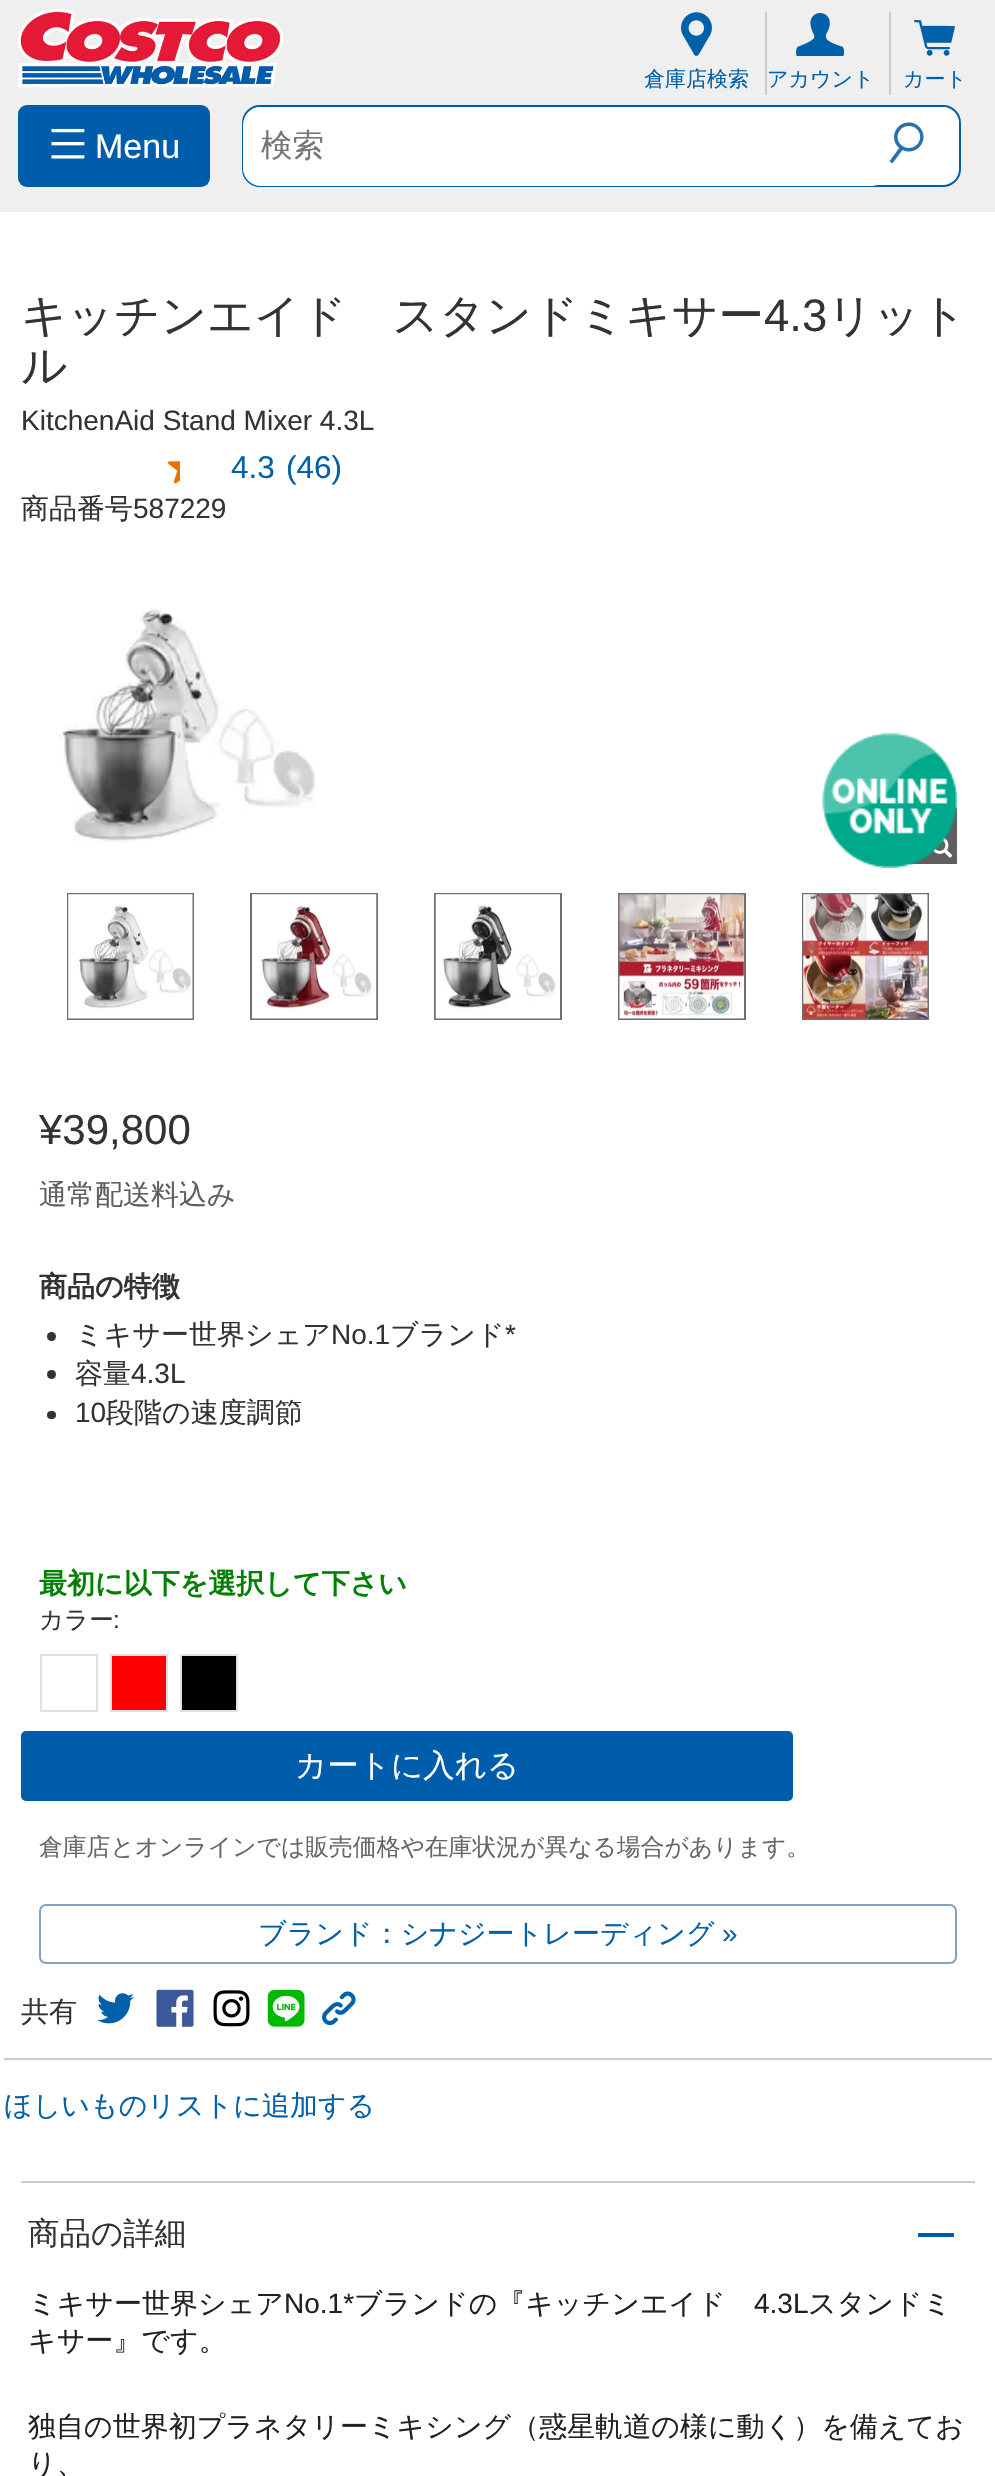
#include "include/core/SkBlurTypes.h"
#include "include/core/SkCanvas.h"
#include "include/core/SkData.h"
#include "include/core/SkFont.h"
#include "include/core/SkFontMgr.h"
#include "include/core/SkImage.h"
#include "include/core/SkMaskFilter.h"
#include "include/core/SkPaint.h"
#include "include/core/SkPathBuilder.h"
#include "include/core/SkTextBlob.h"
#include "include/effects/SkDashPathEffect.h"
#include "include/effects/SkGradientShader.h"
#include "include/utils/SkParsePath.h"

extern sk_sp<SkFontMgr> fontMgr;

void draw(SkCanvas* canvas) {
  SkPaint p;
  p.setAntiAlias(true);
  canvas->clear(SK_ColorWHITE);
  p.setColor(SkColorSetRGB(239, 239, 239));
  canvas->drawRect(SkRect::MakeLTRB(0, 0, 995, 212), p);
  canvas->drawImageRect(SkImages::DeferredFromEncodedData(SkData::MakeFromFileName("images/1.png")), SkRect::MakeLTRB(17, 9, 284, 88), SkSamplingOptions());
  p.setColor(SkColorSetRGB(202, 202, 202));
  canvas->drawRect(SkRect::MakeLTRB(765, 12, 767, 95), p);
  canvas->drawImageRect(SkImages::DeferredFromEncodedData(SkData::MakeFromFileName("images/2.png")), SkRect::MakeLTRB(681, 12, 712, 56), SkSamplingOptions());
  canvas->drawRect(SkRect::MakeLTRB(889, 12, 891, 95), p);
  canvas->drawImageRect(SkImages::DeferredFromEncodedData(SkData::MakeFromFileName("images/3.png")), SkRect::MakeLTRB(796, 12, 844, 56), SkSamplingOptions());
  canvas->drawImageRect(SkImages::DeferredFromEncodedData(SkData::MakeFromFileName("images/4.png")), SkRect::MakeLTRB(914, 20, 955, 56), SkSamplingOptions());
  p.setColor(SkColorSetRGB(0, 93, 171));
  canvas->drawRoundRect(SkRect::MakeLTRB(18, 105, 210, 187), 9, 9, p);
  canvas->drawImageRect(SkImages::DeferredFromEncodedData(SkData::MakeFromFileName("images/5.png")), SkRect::MakeLTRB(51, 128, 85, 159), SkSamplingOptions());
  p.setColor(SK_ColorWHITE);
  canvas->drawRoundRect(SkRect::MakeLTRB(243, 106, 960, 186), 17, 17, p);
  p.setStyle(SkPaint::kStroke_Style);
  p.setStrokeWidth(2);
  p.setColor(SkColorSetRGB(0, 93, 171));
  canvas->drawRoundRect(SkRect::MakeLTRB(243, 106, 960, 186), 17, 17, p);
  p.setStyle(SkPaint::kFill_Style);
  p.setColor(SK_ColorWHITE);
  canvas->drawRoundRect(SkRect::MakeLTRB(243, 107, 889, 186), 18, 18, p);
  canvas->drawRoundRect(SkRect::MakeLTRB(889, 107, 959, 180), 18, 18, p);
  canvas->drawImageRect(SkImages::DeferredFromEncodedData(SkData::MakeFromFileName("images/6.png")), SkRect::MakeLTRB(889, 122, 924, 164), SkSamplingOptions());
  canvas->drawImageRect(SkImages::DeferredFromEncodedData(SkData::MakeFromFileName("images/7.png")), SkRect::MakeLTRB(168, 461, 180, 484), SkSamplingOptions());
  canvas->drawImageRect(SkImages::DeferredFromEncodedData(SkData::MakeFromFileName("images/8.png")), SkRect::MakeLTRB(59, 608, 316, 843), SkSamplingOptions());
  p.setColor(SkColorSetRGB(95, 95, 95));
  canvas->drawPath(SkPathBuilder().moveTo(957, 864).lineTo(900, 864).lineTo(957, 807).close().detach(), p);
  canvas->drawImageRect(SkImages::DeferredFromEncodedData(SkData::MakeFromFileName("images/9.png")), SkRect::MakeLTRB(932, 837, 953, 858), SkSamplingOptions());
  canvas->drawImageRect(SkImages::DeferredFromEncodedData(SkData::MakeFromFileName("images/10.png")), SkRect::MakeLTRB(822, 733, 958, 868), SkSamplingOptions());
  p.setStyle(SkPaint::kStroke_Style);
  p.setColor(SkColorSetRGB(112, 112, 112));
  canvas->drawRect(SkRect::MakeLTRB(68, 894, 193, 1019), p);
  canvas->drawImageRect(SkImages::DeferredFromEncodedData(SkData::MakeFromFileName("images/11.png")), SkRect::MakeLTRB(68, 894, 193, 1019), SkSamplingOptions());
  canvas->drawRect(SkRect::MakeLTRB(251, 894, 377, 1019), p);
  canvas->drawImageRect(SkImages::DeferredFromEncodedData(SkData::MakeFromFileName("images/12.png")), SkRect::MakeLTRB(252, 894, 377, 1019), SkSamplingOptions());
  canvas->drawRect(SkRect::MakeLTRB(435, 894, 561, 1019), p);
  canvas->drawImageRect(SkImages::DeferredFromEncodedData(SkData::MakeFromFileName("images/13.png")), SkRect::MakeLTRB(435, 894, 560, 1019), SkSamplingOptions());
  canvas->drawRect(SkRect::MakeLTRB(619, 894, 745, 1019), p);
  canvas->drawImageRect(SkImages::DeferredFromEncodedData(SkData::MakeFromFileName("images/14.png")), SkRect::MakeLTRB(619, 894, 744, 1019), SkSamplingOptions());
  canvas->drawRect(SkRect::MakeLTRB(803, 894, 928, 1019), p);
  canvas->drawImageRect(SkImages::DeferredFromEncodedData(SkData::MakeFromFileName("images/15.png")), SkRect::MakeLTRB(803, 894, 928, 1019), SkSamplingOptions());
  p.setStyle(SkPaint::kFill_Style);
  p.setColor(SkColorSetRGB(51, 51, 51));
  canvas->drawCircle(51.5f, 1336.5f, 4.5f, p);
  canvas->drawCircle(51.5f, 1374.5f, 4.5f, p);
  canvas->drawRoundRect(SkRect::MakeLTRB(47, 1411, 56, 1419), 4, 4, p);
  p.setStyle(SkPaint::kStroke_Style);
  p.setColor(SkColorSetRGB(225, 225, 225));
  canvas->drawRect(SkRect::MakeLTRB(41, 1655, 97, 1711), p);
  p.setStyle(SkPaint::kFill_Style);
  p.setColor(SkColorSetRGB(255, 0, 0));
  canvas->drawRect(SkRect::MakeLTRB(111, 1655, 167, 1711), p);
  p.setStyle(SkPaint::kStroke_Style);
  p.setColor(SkColorSetRGB(225, 225, 225));
  canvas->drawRect(SkRect::MakeLTRB(111, 1655, 167, 1711), p);
  p.setStyle(SkPaint::kFill_Style);
  p.setColor(SK_ColorBLACK);
  canvas->drawRect(SkRect::MakeLTRB(181, 1655, 237, 1711), p);
  p.setStyle(SkPaint::kStroke_Style);
  p.setColor(SkColorSetRGB(225, 225, 225));
  canvas->drawRect(SkRect::MakeLTRB(181, 1655, 237, 1711), p);
  p.setStyle(SkPaint::kFill_Style);
  p.setColor(SkColorSetRGB(0, 93, 171));
  canvas->drawRoundRect(SkRect::MakeLTRB(22, 1732, 792, 1800), 4, 4, p);
  p.setStyle(SkPaint::kStroke_Style);
  canvas->drawRoundRect(SkRect::MakeLTRB(22, 1732, 792, 1800), 4, 4, p);
  p.setColor(SkColorSetRGB(130, 162, 191));
  canvas->drawRoundRect(SkRect::MakeLTRB(40, 1905, 956, 1963), 6, 6, p);
  canvas->drawImageRect(SkImages::DeferredFromEncodedData(SkData::MakeFromFileName("images/16.png")), SkRect::MakeLTRB(97, 1993, 134, 2024), SkSamplingOptions());
  canvas->drawImageRect(SkImages::DeferredFromEncodedData(SkData::MakeFromFileName("images/17.png")), SkRect::MakeLTRB(156, 1989, 194, 2027), SkSamplingOptions());
  canvas->drawImageRect(SkImages::DeferredFromEncodedData(SkData::MakeFromFileName("images/18.png")), SkRect::MakeLTRB(213, 1990, 250, 2027), SkSamplingOptions());
  canvas->drawImageRect(SkImages::DeferredFromEncodedData(SkData::MakeFromFileName("images/19.png")), SkRect::MakeLTRB(267, 1989, 305, 2027), SkSamplingOptions());
  canvas->drawImageRect(SkImages::DeferredFromEncodedData(SkData::MakeFromFileName("images/20.png")), SkRect::MakeLTRB(322, 1991, 356, 2026), SkSamplingOptions());
  p.setStyle(SkPaint::kFill_Style);
  p.setColor(SkColorSetRGB(204, 204, 204));
  canvas->drawRect(SkRect::MakeLTRB(4, 2058, 992, 2060), p);
  canvas->drawRect(SkRect::MakeLTRB(21, 2181, 975, 2183), p);
  p.setColor(SkColorSetRGB(0, 93, 171));
  canvas->drawRect(SkRect::MakeLTRB(918, 2233, 954, 2237), p);
  SkFont font1(fontMgr->matchFamilyStyle("WenQuanYi Zen Hei", SkFontStyle(500, SkFontStyle::kNormal_Width, SkFontStyle::kUpright_Slant)), 21);
  font1.setSubpixel(true);
  p.setColor(SkColorSetRGB(0, 96, 169));
  canvas->drawString("倉庫店検索", 644, 86, font1, p);
  canvas->drawString("アカウント", 767, 86, font1, p);
  canvas->drawString("カート", 903, 86, font1, p);
  SkFont font2(fontMgr->matchFamilyStyle("Liberation Sans", SkFontStyle::Normal()), 34);
  font2.setSubpixel(true);
  p.setColor(SK_ColorWHITE);
  canvas->drawString("Menu", 95, 158, font2, p);
  SkFont font3(fontMgr->matchFamilyStyle("WenQuanYi Zen Hei", SkFontStyle(500, SkFontStyle::kNormal_Width, SkFontStyle::kUpright_Slant)), 31.5f);
  font3.setSubpixel(true);
  p.setColor(SkColorSetRGB(117, 117, 117));
  canvas->drawString("検索", 261, 156, font3, p);
  SkFont font4(fontMgr->matchFamilyStyle("WenQuanYi Zen Hei", SkFontStyle(500, SkFontStyle::kNormal_Width, SkFontStyle::kUpright_Slant)), 45.5f);
  font4.setSubpixel(true);
  p.setColor(SkColorSetRGB(51, 51, 51));
  canvas->drawString("キッチンエイド　スタンドミキサー", 21, 331, font4, p);
  SkFont font5(fontMgr->matchFamilyStyle("Liberation Sans", SkFontStyle::Normal()), 45.5f);
  font5.setSubpixel(true);
  canvas->drawString("4.3", 764, 331, font5, p);
  canvas->drawString("リット", 827, 331, font4, p);
  canvas->drawString("ル", 21, 381, font4, p);
  SkFont font6(fontMgr->matchFamilyStyle("Liberation Sans", SkFontStyle::Normal()), 28);
  font6.setSubpixel(true);
  canvas->drawString("KitchenAid Stand Mixer 4.3L", 21, 430, font6, p);
  SkFont font7(fontMgr->matchFamilyStyle("Liberation Sans", SkFontStyle::Normal()), 31.5f);
  font7.setSubpixel(true);
  p.setColor(SkColorSetRGB(0, 96, 169));
  canvas->drawString("4.3", 231, 478, font7, p);
  canvas->drawString("(46)", 286, 478, font7, p);
  SkFont font8(fontMgr->matchFamilyStyle("WenQuanYi Zen Hei", SkFontStyle(500, SkFontStyle::kNormal_Width, SkFontStyle::kUpright_Slant)), 28);
  font8.setSubpixel(true);
  p.setColor(SkColorSetRGB(51, 51, 51));
  canvas->drawString("商品番号", 21, 518, font8, p);
  canvas->drawString("587229", 133, 518, font6, p);
  SkFont font9(fontMgr->matchFamilyStyle("Liberation Sans", SkFontStyle::Normal()), 42);
  font9.setSubpixel(true);
  canvas->drawString("¥39,800", 39, 1144, font9, p);
  p.setColor(SkColorSetRGB(95, 95, 95));
  canvas->drawString("通常配送料込み", 39, 1204, font8, p);
  SkFont font10(fontMgr->matchFamilyStyle("WenQuanYi Zen Hei", SkFontStyle::Bold()), 28);
  font10.setSubpixel(true);
  p.setColor(SkColorSetRGB(51, 51, 51));
  canvas->drawString("商品の特徴", 39, 1296, font10, p);
  canvas->drawString("ミキサー世界シェア", 75, 1344, font8, p);
  canvas->drawString("No.1", 331, 1344, font6, p);
  canvas->drawString("ブランド", 390, 1344, font8, p);
  canvas->drawString("*", 505, 1344, font6, p);
  canvas->drawString("容量", 75, 1383, font8, p);
  canvas->drawString("4.3L", 131, 1383, font6, p);
  canvas->drawString("10", 75, 1422, font6, p);
  canvas->drawString("段階の速度調節", 106, 1422, font8, p);
  p.setColor(SkColorSetRGB(0, 128, 0));
  canvas->drawString("最初に以下を選択して下さい", 39, 1593, font10, p);
  SkFont font11(fontMgr->matchFamilyStyle("WenQuanYi Zen Hei", SkFontStyle(500, SkFontStyle::kNormal_Width, SkFontStyle::kUpright_Slant)), 24.5f);
  font11.setSubpixel(true);
  p.setColor(SkColorSetRGB(51, 51, 51));
  canvas->drawString("カラー", 39, 1628, font11, p);
  SkFont font12(fontMgr->matchFamilyStyle("Liberation Sans", SkFontStyle::Normal()), 24.5f);
  font12.setSubpixel(true);
  canvas->drawString(":", 113, 1628, font12, p);
  p.setColor(SK_ColorWHITE);
  canvas->drawString("カートに入れる", 295, 1776, font3, p);
  SkFont font13(fontMgr->matchFamilyStyle("WenQuanYi Zen Hei", SkFontStyle(500, SkFontStyle::kNormal_Width, SkFontStyle::kUpright_Slant)), 23.8f);
  font13.setSubpixel(true);
  p.setColor(SkColorSetRGB(102, 102, 102));
  canvas->drawString("倉庫店とオンラインでは販売価格や在庫状況が異なる場合があります。", 39, 1855, font13, p);
  p.setColor(SkColorSetRGB(0, 96, 169));
  canvas->drawString("ブランド：シナジートレーディング", 258, 1943, font8, p);
  canvas->drawString("»", 722, 1943, font6, p);
  p.setColor(SkColorSetRGB(51, 51, 51));
  canvas->drawString("共有", 21, 2021, font8, p);
  p.setColor(SkColorSetRGB(0, 96, 169));
  canvas->drawString("ほしいものリストに追加する", 4, 2115, font8, p);
  p.setColor(SkColorSetRGB(51, 51, 51));
  canvas->drawString("商品の詳細", 28, 2244, font3, p);
  p.setColor(SkColorSetRGB(33, 33, 33));
  canvas->drawString("ミキサー世界シェア", 28, 2313, font8, p);
  canvas->drawString("No.1*", 284, 2313, font6, p);
  canvas->drawString("ブランドの『キッチンエイド", 354, 2313, font8, p);
  canvas->drawString("4.3L", 754, 2313, font6, p);
  canvas->drawString("スタンドミ", 808, 2313, font8, p);
  canvas->drawString("キサー』です。", 28, 2350, font8, p);
  canvas->drawString("独自の世界初プラネタリーミキシング（惑星軌道の様に動く）を備えてお", 28, 2436, font8, p);
  canvas->drawString("り、", 28, 2473, font8, p);
}
